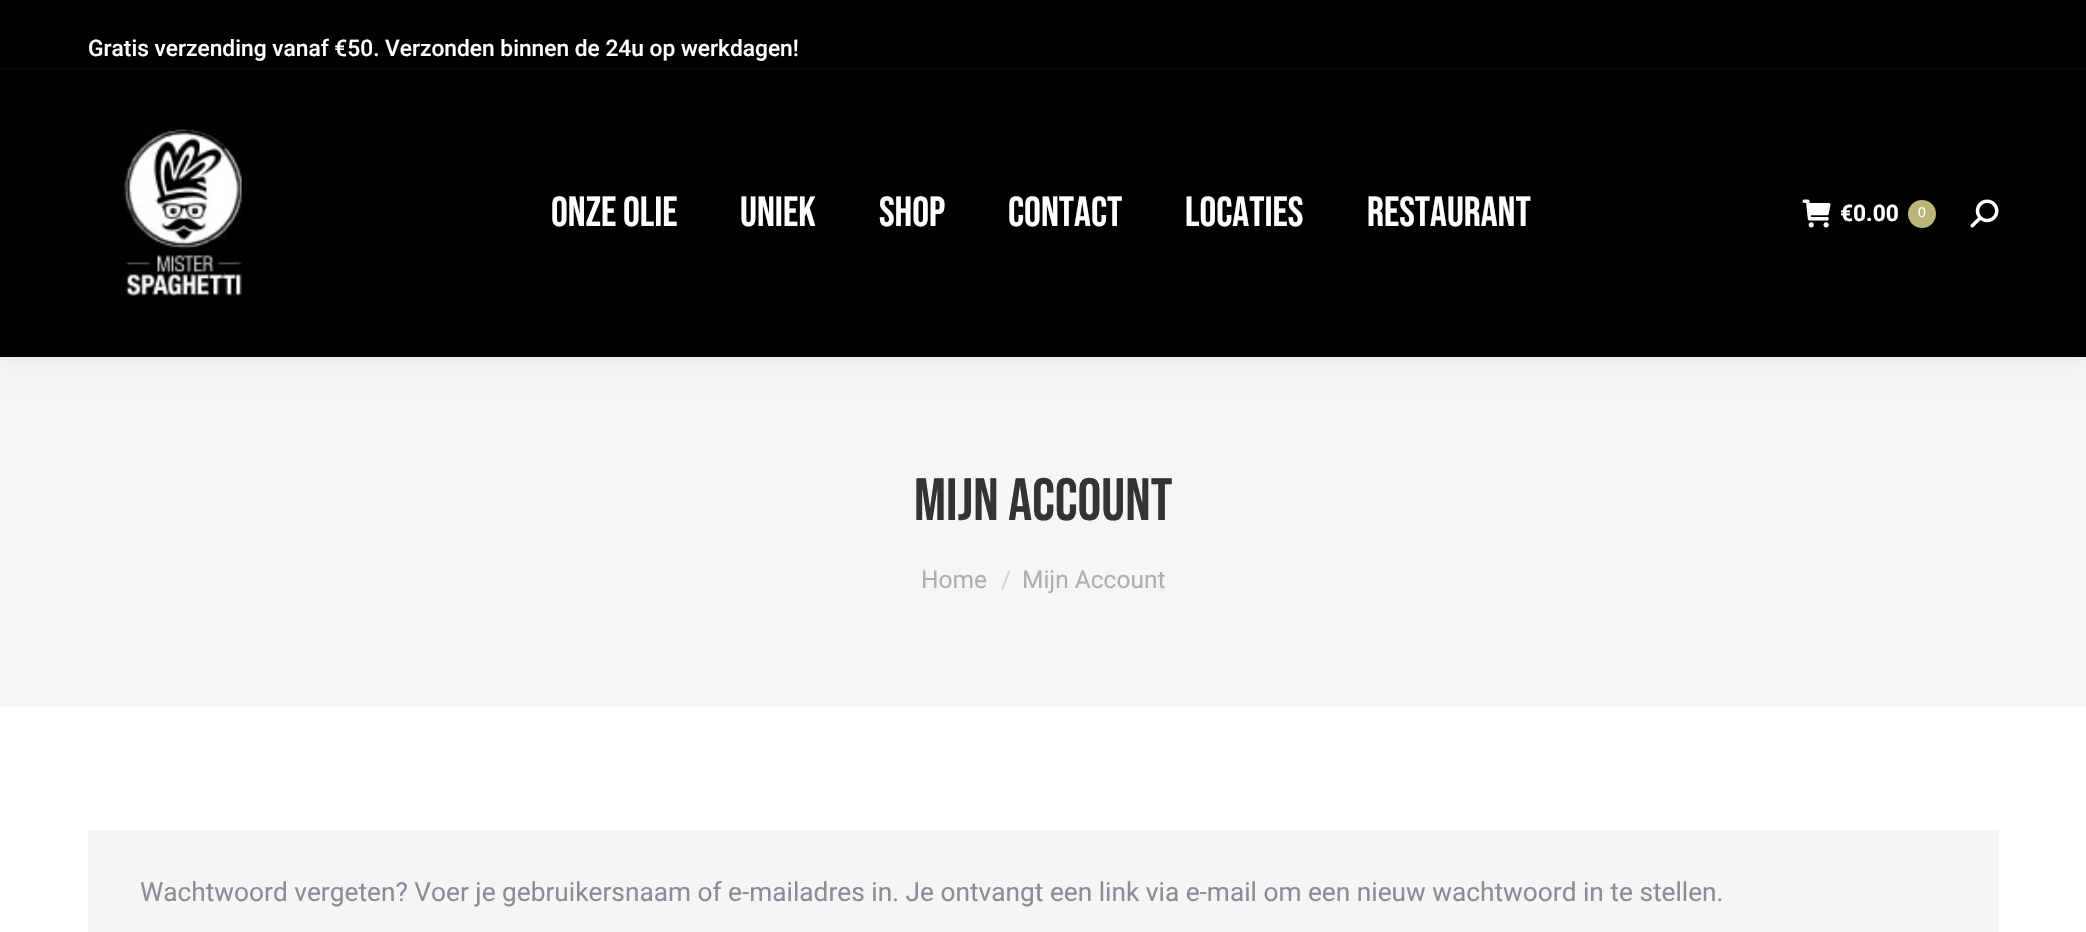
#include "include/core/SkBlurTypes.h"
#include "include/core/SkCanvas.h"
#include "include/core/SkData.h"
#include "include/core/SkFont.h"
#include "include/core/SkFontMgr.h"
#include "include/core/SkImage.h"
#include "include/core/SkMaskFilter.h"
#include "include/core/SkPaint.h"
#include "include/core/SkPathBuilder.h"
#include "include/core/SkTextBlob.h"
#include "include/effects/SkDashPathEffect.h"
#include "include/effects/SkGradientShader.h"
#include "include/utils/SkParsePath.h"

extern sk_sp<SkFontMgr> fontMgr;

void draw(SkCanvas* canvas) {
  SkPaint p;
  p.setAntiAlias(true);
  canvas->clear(SK_ColorWHITE);
  p.setColor(SkColorSetRGB(246, 246, 246));
  canvas->drawRect(SkRect::MakeLTRB(0, 357, 2086, 707), p);
  p.setColor(SkColorSetARGB(18, 0, 0, 0));
  p.setMaskFilter(SkMaskFilter::MakeBlur(kNormal_SkBlurStyle, 13));
  canvas->drawRect(SkRect::MakeLTRB(-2, -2, 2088, 359), p);
  p.setMaskFilter(nullptr);
  p.setColor(SK_ColorBLACK);
  canvas->drawRect(SkRect::MakeLTRB(0, 0, 2086, 357), p);
  p.setColor(SkColorSetRGB(6, 6, 6));
  canvas->drawRect(SkRect::MakeLTRB(0, 68, 2086, 70), p);
  canvas->drawImageRect(SkImages::DeferredFromEncodedData(SkData::MakeFromFileName("images/1.png")), SkRect::MakeLTRB(118, 128, 242, 297), SkSamplingOptions());
  canvas->drawImageRect(SkImages::DeferredFromEncodedData(SkData::MakeFromFileName("images/2.png")), SkRect::MakeLTRB(1802, 199, 1831, 228), SkSamplingOptions());
  p.setColor(SkColorSetRGB(186, 182, 119));
  canvas->drawCircle(1922, 214, 14, p);
  canvas->drawImageRect(SkImages::DeferredFromEncodedData(SkData::MakeFromFileName("images/3.png")), SkRect::MakeLTRB(1970, 199, 1999, 228), SkSamplingOptions());
  p.setColor(SkColorSetRGB(245, 245, 245));
  canvas->drawRect(SkRect::MakeLTRB(88, 830, 1999, 932), p);
  SkFont font1(fontMgr->matchFamilyStyle("Roboto", SkFontStyle(500, SkFontStyle::kNormal_Width, SkFontStyle::kUpright_Slant)), 22.75f);
  font1.setSubpixel(true);
  p.setColor(SK_ColorWHITE);
  canvas->drawString("Gratis verzending vanaf €50. Verzonden binnen de 24u op werkdagen!", 88, 56, font1, p);
  SkFont font2(fontMgr->matchFamilyStyle("Bebas Neue", SkFontStyle::Normal()), 42);
  font2.setSubpixel(true);
  canvas->drawString("Onze olie", 551, 226, font2, p);
  canvas->drawString("Uniek", 740, 226, font2, p);
  canvas->drawString("Shop", 879, 226, font2, p);
  canvas->drawString("Contact", 1008, 226, font2, p);
  canvas->drawString("Locaties", 1185, 226, font2, p);
  canvas->drawString("Restaurant", 1367, 226, font2, p);
  SkFont font3(fontMgr->matchFamilyStyle("Roboto", SkFontStyle::Bold()), 22.75f);
  font3.setSubpixel(true);
  canvas->drawString("€0.00", 1840, 221, font3, p);
  SkFont font4(fontMgr->matchFamilyStyle("Liberation Sans", SkFontStyle::Normal()), 14);
  font4.setSubpixel(true);
  canvas->drawString("0", 1918, 217, font4, p);
  SkFont font5(fontMgr->matchFamilyStyle("Bebas Neue", SkFontStyle::Normal()), 59.5f);
  font5.setSubpixel(true);
  p.setColor(SkColorSetRGB(51, 51, 51));
  canvas->drawString("MIJN ACCOUNT", 914, 520, font5, p);
  SkFont font6(fontMgr->matchFamilyStyle("Roboto", SkFontStyle::Normal()), 24.5f);
  font6.setSubpixel(true);
  p.setColor(SkColorSetRGB(173, 175, 179));
  canvas->drawString("Home", 921, 588, font6, p);
  p.setColor(SkColorSetRGB(210, 211, 213));
  canvas->drawString("/", 1001, 588, font6, p);
  p.setColor(SkColorSetRGB(173, 175, 179));
  canvas->drawString("Mijn Account", 1022, 588, font6, p);
  SkFont font7(fontMgr->matchFamilyStyle("Roboto", SkFontStyle::Normal()), 26.25f);
  font7.setSubpixel(true);
  p.setColor(SkColorSetRGB(139, 141, 148));
  canvas->drawString("Wachtwoord vergeten? Voer je gebruikersnaam of e-mailadres in. Je ontvangt een link via e-mail om een nieuw wachtwoord in te stellen.", 140, 901, font7, p);
}
